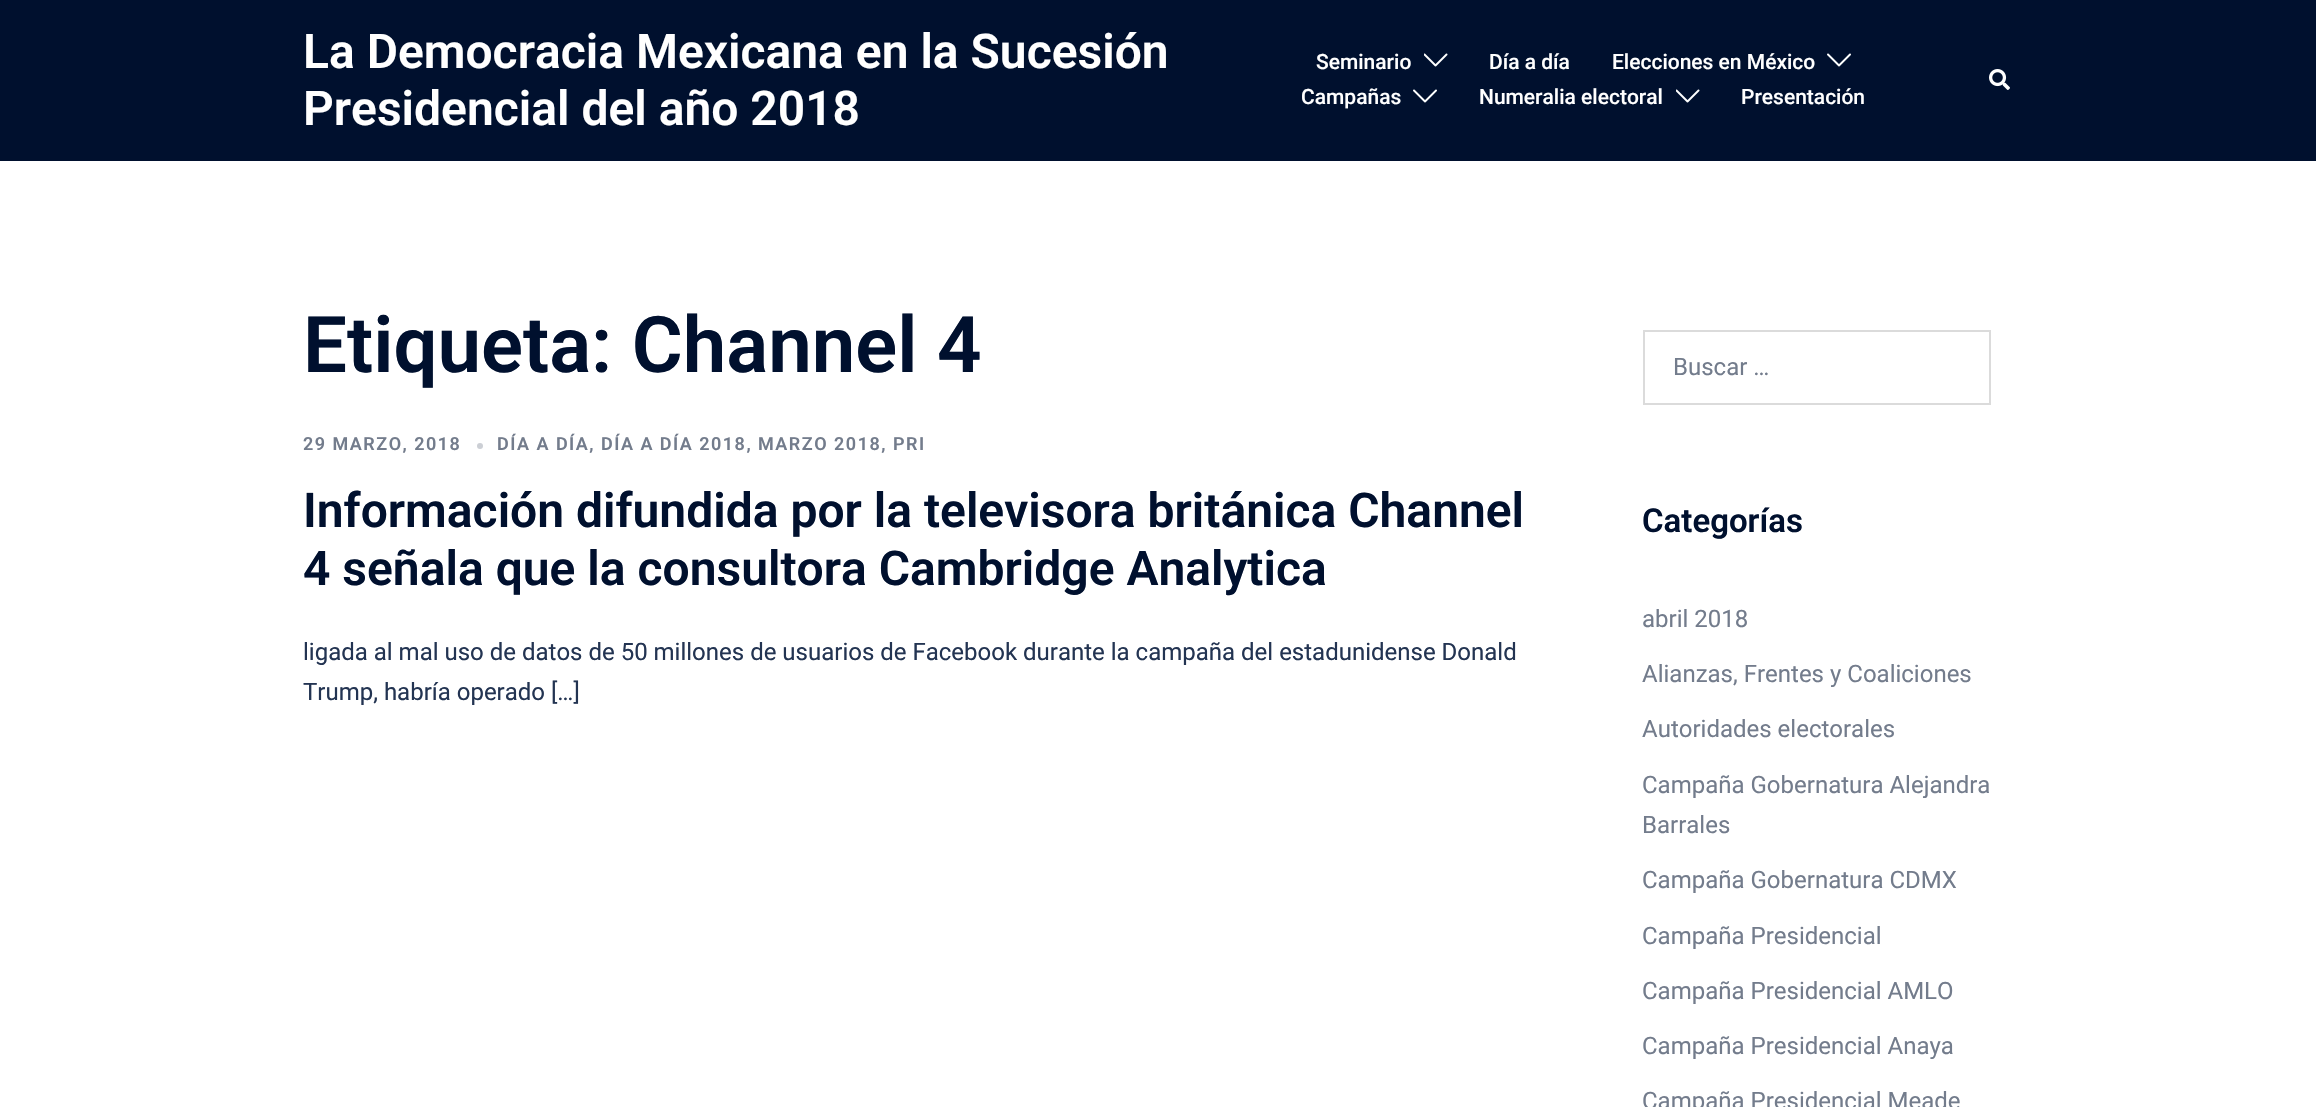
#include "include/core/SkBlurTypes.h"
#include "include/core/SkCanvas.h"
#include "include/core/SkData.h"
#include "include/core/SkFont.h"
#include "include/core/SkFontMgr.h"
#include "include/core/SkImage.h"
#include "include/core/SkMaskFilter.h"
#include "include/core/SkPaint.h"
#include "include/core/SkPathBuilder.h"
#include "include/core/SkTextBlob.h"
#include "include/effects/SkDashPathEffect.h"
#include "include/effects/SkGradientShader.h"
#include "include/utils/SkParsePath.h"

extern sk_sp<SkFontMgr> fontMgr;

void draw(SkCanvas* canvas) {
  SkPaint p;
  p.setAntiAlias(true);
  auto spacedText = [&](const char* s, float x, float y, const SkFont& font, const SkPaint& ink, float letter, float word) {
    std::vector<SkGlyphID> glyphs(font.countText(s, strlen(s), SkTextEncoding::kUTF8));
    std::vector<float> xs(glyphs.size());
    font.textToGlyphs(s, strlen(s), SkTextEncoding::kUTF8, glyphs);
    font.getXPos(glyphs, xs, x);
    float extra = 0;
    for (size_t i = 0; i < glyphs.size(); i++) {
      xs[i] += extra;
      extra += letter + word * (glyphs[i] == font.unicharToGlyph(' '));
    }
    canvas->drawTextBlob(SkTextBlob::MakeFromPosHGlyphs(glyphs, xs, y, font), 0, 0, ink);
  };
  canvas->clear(SK_ColorWHITE);
  p.setColor(SkColorSetRGB(0, 16, 46));
  canvas->drawRect(SkRect::MakeLTRB(0, 0, 2316, 161), p);
  canvas->drawImageRect(SkImages::DeferredFromEncodedData(SkData::MakeFromFileName("images/1.png")), SkRect::MakeLTRB(1424, 53, 1448, 67), SkSamplingOptions());
  canvas->drawImageRect(SkImages::DeferredFromEncodedData(SkData::MakeFromFileName("images/2.png")), SkRect::MakeLTRB(1827, 53, 1851, 67), SkSamplingOptions());
  canvas->drawImageRect(SkImages::DeferredFromEncodedData(SkData::MakeFromFileName("images/2.png")), SkRect::MakeLTRB(1413, 89, 1437, 103), SkSamplingOptions());
  canvas->drawImageRect(SkImages::DeferredFromEncodedData(SkData::MakeFromFileName("images/1.png")), SkRect::MakeLTRB(1676, 89, 1700, 103), SkSamplingOptions());
  canvas->drawImageRect(SkImages::DeferredFromEncodedData(SkData::MakeFromFileName("images/3.png")), SkRect::MakeLTRB(1989, 69, 2010, 90), SkSamplingOptions());
  p.setColor(SkColorSetRGB(204, 207, 213));
  canvas->drawCircle(480, 446, 3, p);
  p.setStyle(SkPaint::kStroke_Style);
  p.setStrokeWidth(2);
  p.setColor(SkColorSetRGB(219, 219, 219));
  canvas->drawRect(SkRect::MakeLTRB(1644, 331, 1990, 404), p);
  SkFont font1(fontMgr->matchFamilyStyle("Roboto", SkFontStyle(600, SkFontStyle::kNormal_Width, SkFontStyle::kUpright_Slant)), 48);
  font1.setSubpixel(true);
  p.setStyle(SkPaint::kFill_Style);
  p.setColor(SK_ColorWHITE);
  canvas->drawString("La Democracia Mexicana en la Sucesión", 303, 68, font1, p);
  canvas->drawString("Presidencial del año 2018", 303, 125, font1, p);
  SkFont font2(fontMgr->matchFamilyStyle("Roboto", SkFontStyle(500, SkFontStyle::kNormal_Width, SkFontStyle::kUpright_Slant)), 21);
  font2.setSubpixel(true);
  canvas->drawString("Seminario", 1316, 69, font2, p);
  canvas->drawString("Día a día", 1489, 69, font2, p);
  canvas->drawString("Elecciones en México", 1612, 69, font2, p);
  canvas->drawString("Campañas", 1301, 104, font2, p);
  canvas->drawString("Numeralia electoral", 1479, 104, font2, p);
  canvas->drawString("Presentación", 1741, 104, font2, p);
  SkFont font3(fontMgr->matchFamilyStyle("Roboto", SkFontStyle(600, SkFontStyle::kNormal_Width, SkFontStyle::kUpright_Slant)), 78);
  font3.setSubpixel(true);
  p.setColor(SkColorSetRGB(0, 16, 46));
  canvas->drawString("Etiqueta: Channel 4", 303, 372, font3, p);
  SkFont font4(fontMgr->matchFamilyStyle("Roboto", SkFontStyle(600, SkFontStyle::kNormal_Width, SkFontStyle::kUpright_Slant)), 18);
  font4.setSubpixel(true);
  p.setColor(SkColorSetRGB(115, 124, 140));
  spacedText("29 MARZO, 2018", 303, 450, font4, p, 1.5f, 0);
  spacedText("DÍA A DÍA, DÍA A DÍA 2018, MARZO 2018, PRI", 497, 450, font4, p, 1.5f, 0);
  p.setColor(SkColorSetRGB(0, 16, 46));
  canvas->drawString("Información difundida por la televisora británica Channel", 303, 527, font1, p);
  canvas->drawString("4 señala que la consultora Cambridge Analytica", 303, 585, font1, p);
  SkFont font5(fontMgr->matchFamilyStyle("Roboto", SkFontStyle::Normal()), 24);
  font5.setSubpixel(true);
  p.setColor(SkColorSetRGB(35, 52, 82));
  canvas->drawString("ligada al mal uso de datos de 50 millones de usuarios de Facebook durante la campaña del estadunidense Donald", 303, 660, font5, p);
  canvas->drawString("Trump, habría operado […]", 303, 700, font5, p);
  p.setColor(SkColorSetRGB(115, 124, 140));
  canvas->drawString("Buscar …", 1673, 375, font5, p);
  SkFont font6(fontMgr->matchFamilyStyle("Roboto", SkFontStyle(600, SkFontStyle::kNormal_Width, SkFontStyle::kUpright_Slant)), 33);
  font6.setSubpixel(true);
  p.setColor(SkColorSetRGB(0, 16, 46));
  canvas->drawString("Categorías", 1642, 532, font6, p);
  p.setColor(SkColorSetRGB(115, 124, 140));
  canvas->drawString("abril 2018", 1642, 627, font5, p);
  canvas->drawString("Alianzas, Frentes y Coaliciones", 1642, 682, font5, p);
  canvas->drawString("Autoridades electorales", 1642, 737, font5, p);
  canvas->drawString("Campaña Gobernatura Alejandra", 1642, 793, font5, p);
  canvas->drawString("Barrales", 1642, 833, font5, p);
  canvas->drawString("Campaña Gobernatura CDMX", 1642, 888, font5, p);
  canvas->drawString("Campaña Presidencial", 1642, 944, font5, p);
  canvas->drawString("Campaña Presidencial AMLO", 1642, 999, font5, p);
  canvas->drawString("Campaña Presidencial Anaya", 1642, 1054, font5, p);
  canvas->drawString("Campaña Presidencial Meade", 1642, 1109, font5, p);
}
